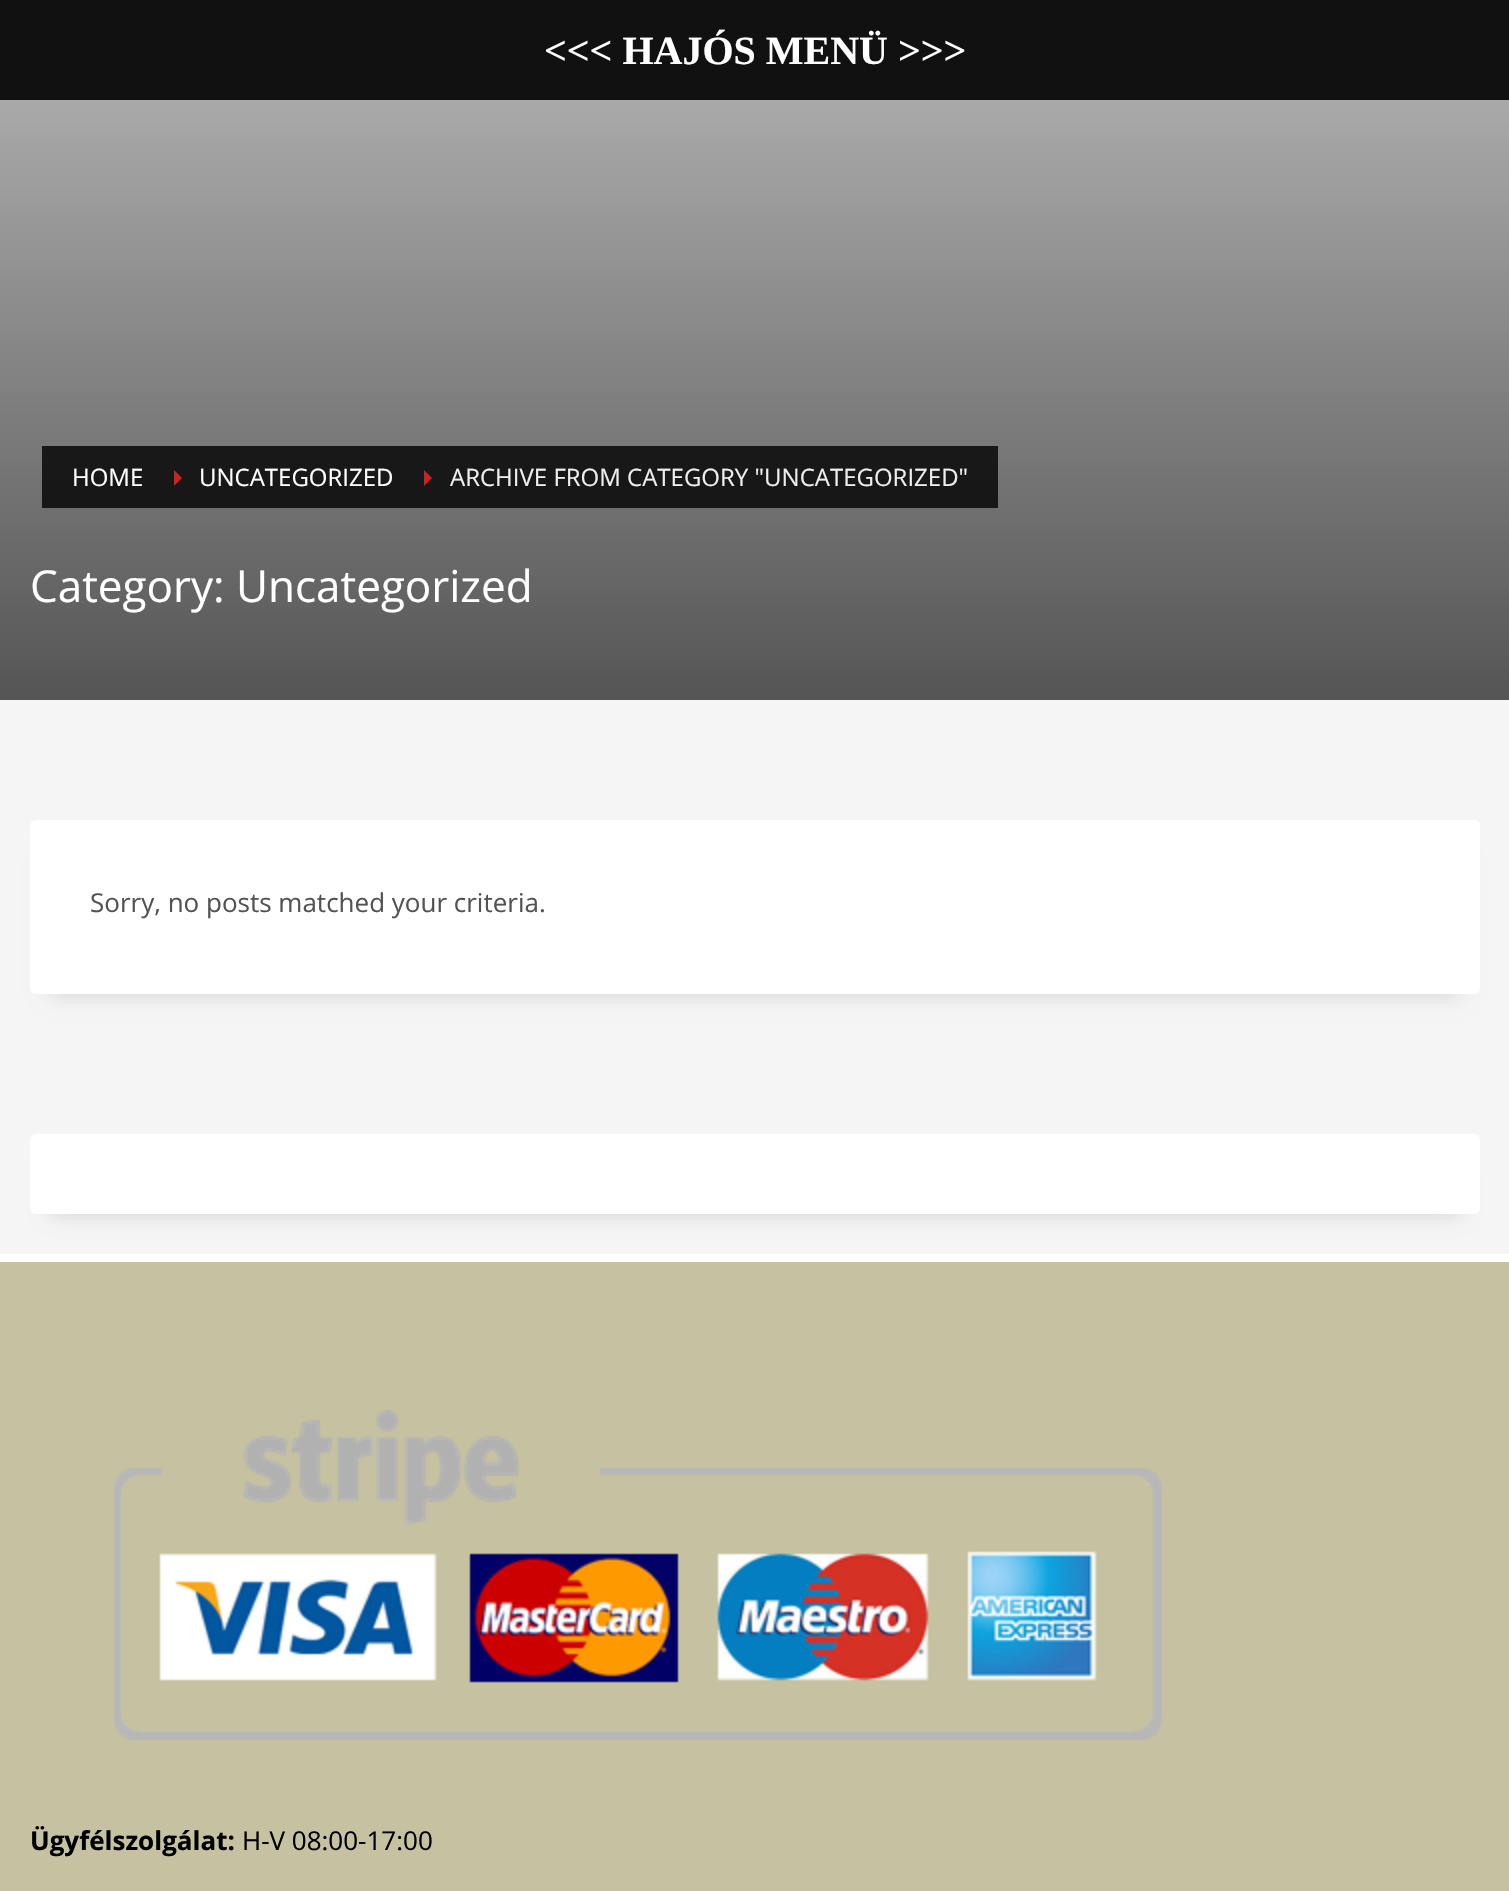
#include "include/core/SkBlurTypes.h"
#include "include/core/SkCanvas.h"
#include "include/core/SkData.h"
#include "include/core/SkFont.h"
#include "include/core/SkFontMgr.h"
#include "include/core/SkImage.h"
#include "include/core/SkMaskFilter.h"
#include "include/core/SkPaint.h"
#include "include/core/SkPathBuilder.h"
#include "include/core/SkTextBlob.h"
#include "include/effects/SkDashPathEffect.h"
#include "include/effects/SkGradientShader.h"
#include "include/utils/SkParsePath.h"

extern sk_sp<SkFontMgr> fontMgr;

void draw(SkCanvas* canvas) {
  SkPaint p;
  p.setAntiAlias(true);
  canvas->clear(SkColorSetRGB(245, 245, 245));
  p.setColor(SkColorSetRGB(17, 17, 17));
  canvas->drawRect(SkRect::MakeLTRB(0, 0, 1509, 100), p);
  {
    const SkColor colors[] = {SkColorSetRGB(169, 169, 169), SkColorSetRGB(85, 85, 85)};
    const float stops[] = {0, 1};
    const SkPoint ends[] = {{755, 100}, {755, 700}};
    p.setShader(SkGradientShader::MakeLinear(ends, colors, stops, 2, SkTileMode::kClamp));
    p.setAlpha(255);
  }
  canvas->drawRect(SkRect::MakeLTRB(0, 100, 1509, 700), p);
  p.setShader(nullptr);
  p.setColor(SkColorSetARGB(204, 0, 0, 0));
  canvas->drawRect(SkRect::MakeLTRB(42, 446, 154, 508), p);
  canvas->drawRect(SkRect::MakeLTRB(154, 446, 404, 508), p);
  p.setColor(SkColorSetRGB(205, 33, 34));
  canvas->drawPath(SkPathBuilder().moveTo(174, 486).lineTo(174, 470).lineTo(182, 478).close().detach(), p);
  p.setColor(SkColorSetARGB(204, 0, 0, 0));
  canvas->drawRect(SkRect::MakeLTRB(404, 446, 998, 508), p);
  p.setColor(SkColorSetRGB(205, 33, 34));
  canvas->drawPath(SkPathBuilder().moveTo(424, 486).lineTo(424, 470).lineTo(432, 478).close().detach(), p);
  p.setColor(SkColorSetARGB(38, 0, 0, 0));
  p.setMaskFilter(SkMaskFilter::MakeBlur(kNormal_SkBlurStyle, 10));
  canvas->drawRect(SkRect::MakeLTRB(50, 860, 1460, 994), p);
  p.setMaskFilter(nullptr);
  p.setColor(SK_ColorWHITE);
  canvas->drawRoundRect(SkRect::MakeLTRB(30, 820, 1480, 994), 6, 6, p);
  p.setColor(SkColorSetARGB(38, 0, 0, 0));
  p.setMaskFilter(SkMaskFilter::MakeBlur(kNormal_SkBlurStyle, 10));
  canvas->drawRect(SkRect::MakeLTRB(50, 1174, 1460, 1214), p);
  p.setMaskFilter(nullptr);
  p.setColor(SK_ColorWHITE);
  canvas->drawRoundRect(SkRect::MakeLTRB(30, 1134, 1480, 1214), 6, 6, p);
  p.setColor(SkColorSetRGB(198, 194, 161));
  canvas->drawRect(SkRect::MakeLTRB(0, 1262, 1509, 1891), p);
  p.setColor(SK_ColorWHITE);
  canvas->drawRect(SkRect::MakeLTRB(0, 1254, 1509, 1262), p);
  canvas->drawImageRect(SkImages::DeferredFromEncodedData(SkData::MakeFromFileName("images/1.png")), SkRect::MakeLTRB(113, 1409, 1163, 1741), SkSamplingOptions());
  SkFont font1(fontMgr->matchFamilyStyle("Liberation Serif", SkFontStyle::Bold()), 40);
  font1.setSubpixel(true);
  canvas->drawString("<<< HAJÓS MENÜ >>>", 544, 64, font1, p);
  SkFont font2(fontMgr->matchFamilyStyle("Open Sans", SkFontStyle::Normal()), 24);
  font2.setSubpixel(true);
  canvas->drawString("HOME", 72, 486, font2, p);
  canvas->drawString("UNCATEGORIZED", 199, 486, font2, p);
  p.setColor(SkColorSetRGB(238, 238, 238));
  canvas->drawString("ARCHIVE FROM CATEGORY \"UNCATEGORIZED\"", 450, 486, font2, p);
  SkFont font3(fontMgr->matchFamilyStyle("Open Sans", SkFontStyle::Normal()), 44);
  font3.setSubpixel(true);
  p.setColor(SK_ColorWHITE);
  canvas->drawString("Category: Uncategorized", 30, 602, font3, p);
  SkFont font4(fontMgr->matchFamilyStyle("Open Sans", SkFontStyle::Normal()), 26);
  font4.setSubpixel(true);
  p.setColor(SkColorSetRGB(83, 83, 83));
  canvas->drawString("Sorry, no posts matched your criteria.", 90, 912, font4, p);
  SkFont font5(fontMgr->matchFamilyStyle("Open Sans", SkFontStyle::Bold()), 26);
  font5.setSubpixel(true);
  p.setColor(SK_ColorBLACK);
  canvas->drawString("Ügyfélszolgálat:", 30, 1850, font5, p);
  canvas->drawString("H-V 08:00-17:00", 242, 1850, font4, p);
}
